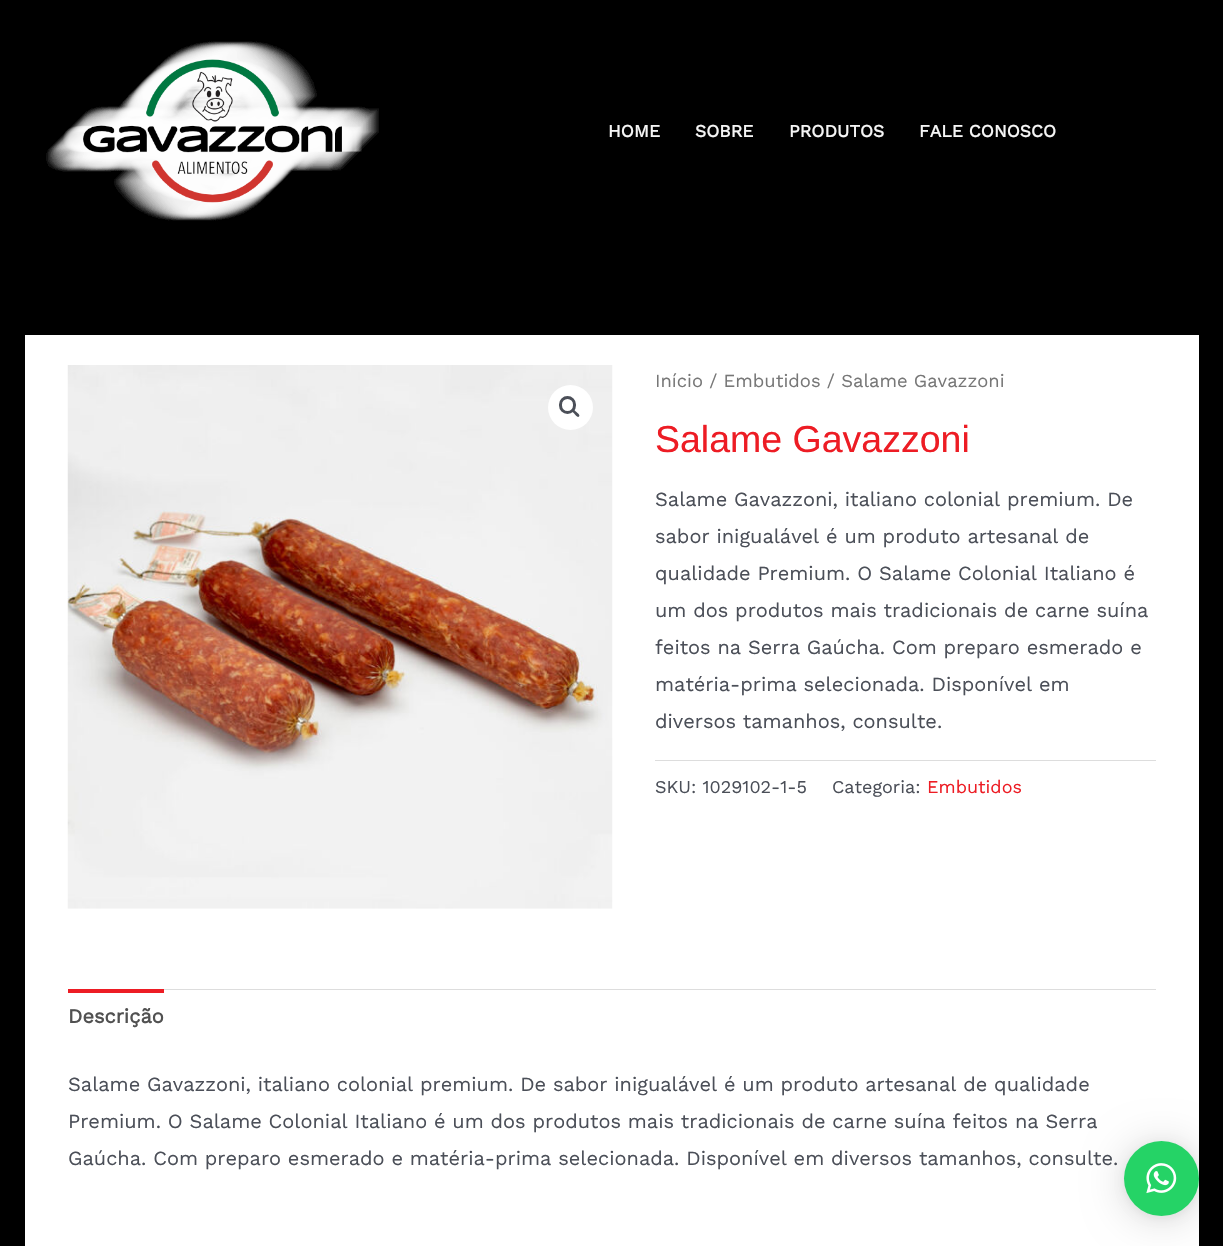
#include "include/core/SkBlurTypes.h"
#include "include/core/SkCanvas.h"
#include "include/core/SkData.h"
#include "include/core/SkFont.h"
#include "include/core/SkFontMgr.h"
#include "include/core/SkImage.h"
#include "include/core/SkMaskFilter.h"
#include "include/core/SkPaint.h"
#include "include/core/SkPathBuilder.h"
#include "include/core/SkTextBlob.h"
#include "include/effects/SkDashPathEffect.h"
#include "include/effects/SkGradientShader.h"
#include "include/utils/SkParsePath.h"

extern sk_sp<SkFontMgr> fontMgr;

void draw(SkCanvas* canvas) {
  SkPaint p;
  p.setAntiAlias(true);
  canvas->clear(SK_ColorBLACK);
  canvas->drawImageRect(SkImages::DeferredFromEncodedData(SkData::MakeFromFileName("images/1.png")), SkRect::MakeLTRB(46, 41, 379, 221), SkSamplingOptions());
  p.setColor(SK_ColorWHITE);
  canvas->drawRect(SkRect::MakeLTRB(25, 335, 1199, 1246), p);
  canvas->drawImageRect(SkImages::DeferredFromEncodedData(SkData::MakeFromFileName("images/2.png")), SkRect::MakeLTRB(67, 365, 613, 909), SkSamplingOptions());
  canvas->drawCircle(570.5f, 407.5f, 22.5f, p);
  p.setStyle(SkPaint::kStroke_Style);
  p.setStrokeWidth(3);
  p.setColor(SkColorSetRGB(75, 79, 88));
  canvas->drawRoundRect(SkRect::MakeLTRB(560.5f, 397.5f, 574.5f, 412.5f), 7, 7, p);
  p.setStyle(SkPaint::kFill_Style);
  canvas->drawPath(SkPathBuilder().moveTo(572, 409.5f).cubicTo(573.5f, 408, 575.5f, 411.5f, 576.5f, 412).cubicTo(577.5f, 413, 580.5f, 415, 579, 416.5f).cubicTo(577.5f, 418, 575.5f, 415, 574.5f, 414).cubicTo(574, 413, 570.5f, 411, 572, 409.5f).close().detach(), p);
  p.setColor(SkColorSetRGB(221, 221, 221));
  canvas->drawRect(SkRect::MakeLTRB(655, 760, 1156, 761), p);
  canvas->drawRect(SkRect::MakeLTRB(164, 989, 1156, 990), p);
  p.setColor(SkColorSetRGB(237, 28, 36));
  canvas->drawRect(SkRect::MakeLTRB(68, 989, 164, 993), p);
  p.setColor(SkColorSetARGB(41, 0, 0, 0));
  p.setMaskFilter(SkMaskFilter::MakeBlur(kNormal_SkBlurStyle, 20));
  canvas->drawRoundRect(SkRect::MakeLTRB(1124, 1144, 1199, 1219), 37.5f, 37.5f, p);
  p.setMaskFilter(nullptr);
  p.setColor(SkColorSetARGB(15, 0, 0, 0));
  p.setMaskFilter(SkMaskFilter::MakeBlur(kNormal_SkBlurStyle, 4));
  canvas->drawRoundRect(SkRect::MakeLTRB(1124, 1143, 1199, 1218), 37.5f, 37.5f, p);
  p.setMaskFilter(nullptr);
  p.setColor(SkColorSetRGB(37, 211, 102));
  canvas->drawCircle(1161.5f, 1178.5f, 37.5f, p);
  canvas->drawImageRect(SkImages::DeferredFromEncodedData(SkData::MakeFromFileName("images/3.png")), SkRect::MakeLTRB(1146, 1163, 1177, 1194), SkSamplingOptions());
  SkFont font1(fontMgr->matchFamilyStyle("Work Sans", SkFontStyle::Bold()), 17.5f);
  font1.setSubpixel(true);
  p.setColor(SkColorSetRGB(245, 245, 245));
  canvas->drawString("HOME", 608, 137, font1, p);
  canvas->drawString("SOBRE", 695, 137, font1, p);
  canvas->drawString("PRODUTOS", 789, 137, font1, p);
  canvas->drawString("FALE CONOSCO", 919, 137, font1, p);
  SkFont font2(fontMgr->matchFamilyStyle("Work Sans", SkFontStyle::Normal()), 18.4f);
  font2.setSubpixel(true);
  p.setColor(SkColorSetRGB(119, 119, 119));
  canvas->drawString("Início / Embutidos / Salame Gavazzoni", 655, 387, font2, p);
  SkFont font3(fontMgr->matchFamilyStyle("Liberation Sans", SkFontStyle::Normal()), 37.5f);
  font3.setSubpixel(true);
  p.setColor(SkColorSetRGB(237, 28, 36));
  canvas->drawString("Salame Gavazzoni", 655, 452, font3, p);
  SkFont font4(fontMgr->matchFamilyStyle("Work Sans", SkFontStyle::Normal()), 20);
  font4.setSubpixel(true);
  p.setColor(SkColorSetRGB(75, 79, 88));
  canvas->drawString("Salame Gavazzoni, italiano colonial premium. De", 655, 506, font4, p);
  canvas->drawString("sabor inigualável é um produto artesanal de", 655, 543, font4, p);
  canvas->drawString("qualidade Premium. O Salame Colonial Italiano é", 655, 580, font4, p);
  canvas->drawString("um dos produtos mais tradicionais de carne suína", 655, 617, font4, p);
  canvas->drawString("feitos na Serra Gaúcha. Com preparo esmerado e", 655, 654, font4, p);
  canvas->drawString("matéria-prima selecionada. Disponível em", 655, 691, font4, p);
  canvas->drawString("diversos tamanhos, consulte.", 655, 728, font4, p);
  SkFont font5(fontMgr->matchFamilyStyle("Work Sans", SkFontStyle::Normal()), 18);
  font5.setSubpixel(true);
  canvas->drawString("SKU: 1029102-1-5", 655, 793, font5, p);
  canvas->drawString("Categoria:", 832, 793, font5, p);
  p.setColor(SkColorSetRGB(237, 28, 36));
  canvas->drawString("Embutidos", 927, 793, font5, p);
  SkFont font6(fontMgr->matchFamilyStyle("Work Sans", SkFontStyle::Bold()), 20);
  font6.setSubpixel(true);
  p.setColor(SkColorSetRGB(81, 81, 81));
  canvas->drawString("Descrição", 68, 1023, font6, p);
  p.setColor(SkColorSetRGB(75, 79, 88));
  canvas->drawString("Salame Gavazzoni, italiano colonial premium. De sabor inigualável é um produto artesanal de qualidade", 68, 1091, font4, p);
  canvas->drawString("Premium. O Salame Colonial Italiano é um dos produtos mais tradicionais de carne suína feitos na Serra", 68, 1128, font4, p);
  canvas->drawString("Gaúcha. Com preparo esmerado e matéria-prima selecionada. Disponível em diversos tamanhos, consulte.", 68, 1165, font4, p);
}
